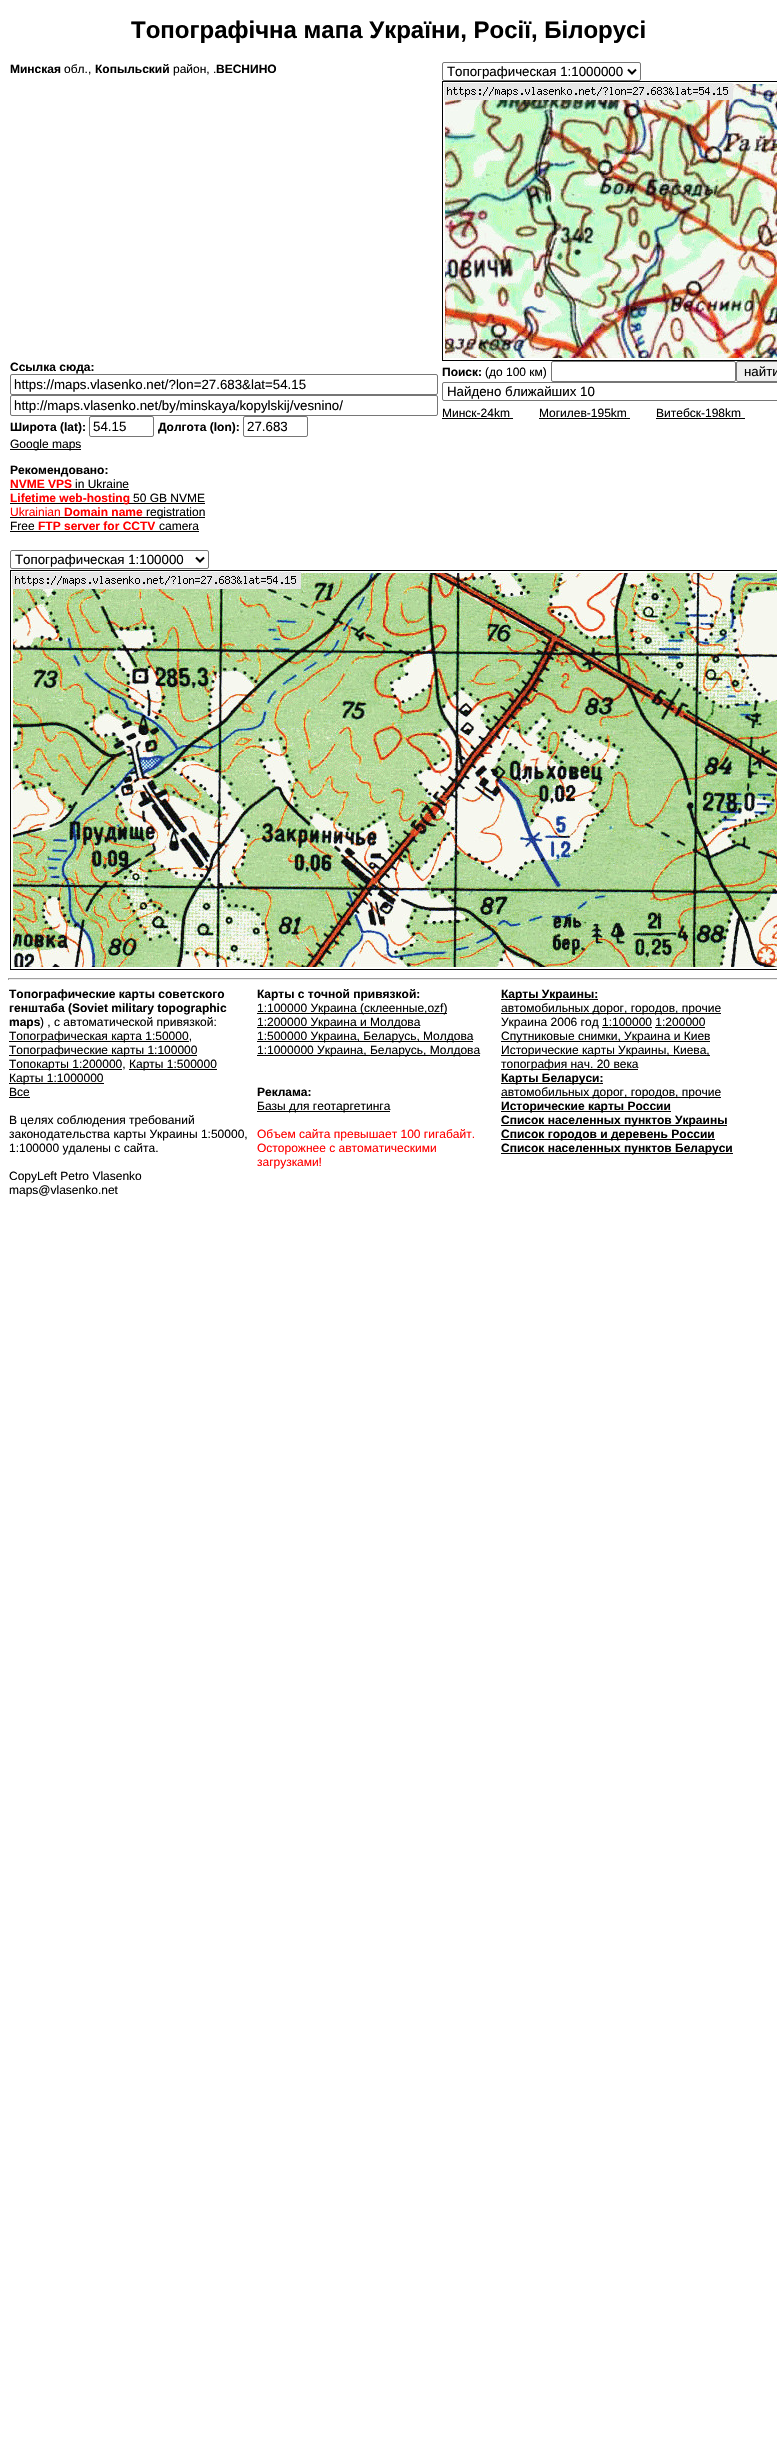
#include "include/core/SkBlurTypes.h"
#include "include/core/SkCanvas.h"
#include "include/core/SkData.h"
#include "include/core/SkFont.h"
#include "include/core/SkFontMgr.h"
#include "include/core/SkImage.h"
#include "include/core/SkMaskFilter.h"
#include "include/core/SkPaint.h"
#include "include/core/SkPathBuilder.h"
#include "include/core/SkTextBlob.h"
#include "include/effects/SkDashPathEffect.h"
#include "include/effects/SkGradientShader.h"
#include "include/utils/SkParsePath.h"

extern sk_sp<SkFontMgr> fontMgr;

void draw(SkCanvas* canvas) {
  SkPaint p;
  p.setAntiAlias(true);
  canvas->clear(SK_ColorWHITE);
  p.setStyle(SkPaint::kStroke_Style);
  p.setStrokeWidth(1);
  p.setColor(SkColorSetRGB(118, 118, 118));
  canvas->drawRoundRect(SkRect::MakeLTRB(10.5f, 374.5f, 437.5f, 394.5f), 1.5f, 1.5f, p);
  canvas->drawRoundRect(SkRect::MakeLTRB(10.5f, 395.5f, 437.5f, 415.5f), 1.5f, 1.5f, p);
  canvas->drawRoundRect(SkRect::MakeLTRB(89.5f, 416.5f, 153.5f, 436.5f), 1.5f, 1.5f, p);
  canvas->drawRoundRect(SkRect::MakeLTRB(243.5f, 416.5f, 307.5f, 436.5f), 1.5f, 1.5f, p);
  p.setStyle(SkPaint::kFill_Style);
  p.setColor(SK_ColorBLACK);
  canvas->drawRect(SkRect::MakeLTRB(10, 449, 81, 450), p);
  canvas->drawRect(SkRect::MakeLTRB(10, 489, 129, 490), p);
  canvas->drawRect(SkRect::MakeLTRB(10, 503, 205, 504), p);
  canvas->drawRect(SkRect::MakeLTRB(10, 517, 205, 518), p);
  canvas->drawRect(SkRect::MakeLTRB(10, 531, 199, 532), p);
  p.setStyle(SkPaint::kStroke_Style);
  p.setColor(SkColorSetRGB(118, 118, 118));
  canvas->drawRoundRect(SkRect::MakeLTRB(442.5f, 62.5f, 640.5f, 80.5f), 1.5f, 1.5f, p);
  p.setStrokeWidth(2);
  p.setColor(SK_ColorBLACK);
  canvas->drawPath(SkPathBuilder().moveTo(628, 69.5f).lineTo(632, 73.5f).lineTo(636, 69.5f).detach(), p);
  canvas->drawImageRect(SkImages::DeferredFromEncodedData(SkData::MakeFromFileName("images/1.png")), SkRect::MakeLTRB(442, 81, 777, 361), SkSamplingOptions());
  p.setStrokeWidth(1);
  p.setColor(SkColorSetRGB(118, 118, 118));
  canvas->drawRoundRect(SkRect::MakeLTRB(551.5f, 361.5f, 735.5f, 381.5f), 1.5f, 1.5f, p);
  p.setStyle(SkPaint::kFill_Style);
  p.setColor(SkColorSetRGB(239, 239, 239));
  canvas->drawRoundRect(SkRect::MakeLTRB(736.5f, 361.5f, 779.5f, 381.5f), 1.5f, 1.5f, p);
  p.setStyle(SkPaint::kStroke_Style);
  p.setColor(SkColorSetRGB(118, 118, 118));
  canvas->drawRoundRect(SkRect::MakeLTRB(736.5f, 361.5f, 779.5f, 381.5f), 1.5f, 1.5f, p);
  canvas->drawRoundRect(SkRect::MakeLTRB(442.5f, 382.5f, 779.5f, 400.5f), 1.5f, 1.5f, p);
  p.setStyle(SkPaint::kFill_Style);
  p.setColor(SK_ColorBLACK);
  canvas->drawRect(SkRect::MakeLTRB(442, 418, 513, 419), p);
  canvas->drawRect(SkRect::MakeLTRB(539, 418, 630, 419), p);
  canvas->drawRect(SkRect::MakeLTRB(656, 418, 745, 419), p);
  p.setStyle(SkPaint::kStroke_Style);
  p.setColor(SkColorSetRGB(118, 118, 118));
  canvas->drawRoundRect(SkRect::MakeLTRB(10.5f, 550.5f, 208.5f, 568.5f), 1.5f, 1.5f, p);
  p.setStrokeWidth(2);
  p.setColor(SK_ColorBLACK);
  canvas->drawPath(SkPathBuilder().moveTo(196, 557.5f).lineTo(200, 561.5f).lineTo(204, 557.5f).detach(), p);
  canvas->drawImageRect(SkImages::DeferredFromEncodedData(SkData::MakeFromFileName("images/2.png")), SkRect::MakeLTRB(10, 570, 777, 970), SkSamplingOptions());
  p.setStyle(SkPaint::kFill_Style);
  p.setColor(SkColorSetRGB(159, 159, 159));
  canvas->drawRect(SkRect::MakeLTRB(8, 978, 777, 979), p);
  p.setColor(SkColorSetRGB(238, 238, 238));
  canvas->drawRect(SkRect::MakeLTRB(8, 979, 777, 980), p);
  p.setColor(SkColorSetRGB(159, 159, 159));
  canvas->drawRect(SkRect::MakeLTRB(8, 978, 9, 980), p);
  p.setColor(SK_ColorBLACK);
  canvas->drawRect(SkRect::MakeLTRB(9, 1041, 189, 1042), p);
  canvas->drawRect(SkRect::MakeLTRB(9, 1055, 197, 1056), p);
  canvas->drawRect(SkRect::MakeLTRB(9, 1069, 122, 1070), p);
  canvas->drawRect(SkRect::MakeLTRB(129, 1069, 217, 1070), p);
  canvas->drawRect(SkRect::MakeLTRB(9, 1083, 104, 1084), p);
  canvas->drawRect(SkRect::MakeLTRB(9, 1097, 30, 1098), p);
  canvas->drawRect(SkRect::MakeLTRB(257, 1013, 447, 1014), p);
  canvas->drawRect(SkRect::MakeLTRB(257, 1027, 420, 1028), p);
  canvas->drawRect(SkRect::MakeLTRB(257, 1041, 473, 1042), p);
  canvas->drawRect(SkRect::MakeLTRB(257, 1055, 480, 1056), p);
  canvas->drawRect(SkRect::MakeLTRB(257, 1111, 390, 1112), p);
  canvas->drawRect(SkRect::MakeLTRB(501, 999, 598, 1000), p);
  canvas->drawRect(SkRect::MakeLTRB(501, 1013, 721, 1014), p);
  canvas->drawRect(SkRect::MakeLTRB(602, 1027, 652, 1028), p);
  canvas->drawRect(SkRect::MakeLTRB(655, 1027, 705, 1028), p);
  canvas->drawRect(SkRect::MakeLTRB(501, 1041, 710, 1042), p);
  canvas->drawRect(SkRect::MakeLTRB(501, 1055, 710, 1056), p);
  canvas->drawRect(SkRect::MakeLTRB(501, 1069, 638, 1070), p);
  canvas->drawRect(SkRect::MakeLTRB(501, 1083, 603, 1084), p);
  canvas->drawRect(SkRect::MakeLTRB(501, 1097, 721, 1098), p);
  canvas->drawRect(SkRect::MakeLTRB(501, 1111, 671, 1112), p);
  canvas->drawRect(SkRect::MakeLTRB(501, 1125, 727, 1126), p);
  canvas->drawRect(SkRect::MakeLTRB(501, 1139, 715, 1140), p);
  canvas->drawRect(SkRect::MakeLTRB(501, 1153, 733, 1154), p);
  SkFont font1(fontMgr->matchFamilyStyle("Liberation Sans", SkFontStyle::Bold()), 24);
  font1.setSubpixel(true);
  canvas->drawString("Топографічна мапа України, Росії, Білорусі", 131, 38, font1, p);
  SkFont font2(fontMgr->matchFamilyStyle("Liberation Sans", SkFontStyle::Bold()), 12);
  font2.setSubpixel(true);
  canvas->drawString("Минская", 10, 73, font2, p);
  SkFont font3(fontMgr->matchFamilyStyle("Liberation Sans", SkFontStyle::Normal()), 12);
  font3.setSubpixel(true);
  canvas->drawString("обл.,", 64, 73, font3, p);
  canvas->drawString("Копыльский", 95, 73, font2, p);
  canvas->drawString("район, .", 173, 73, font3, p);
  canvas->drawString("ВЕСНИНО", 216, 73, font2, p);
  canvas->drawString("Ссылка сюда:", 10, 371, font2, p);
  SkFont font4(fontMgr->matchFamilyStyle("Liberation Sans", SkFontStyle::Normal()), 13.3f);
  font4.setSubpixel(true);
  canvas->drawString("https://maps.vlasenko.net/?lon=27.683&lat=54.15", 14, 389, font4, p);
  canvas->drawString("http://maps.vlasenko.net/by/minskaya/kopylskij/vesnino/", 14, 410, font4, p);
  canvas->drawString("Широта (lat):", 10, 431, font2, p);
  canvas->drawString("54.15", 93, 431, font4, p);
  canvas->drawString("Долгота (lon):", 158, 431, font2, p);
  canvas->drawString("27.683", 247, 431, font4, p);
  canvas->drawString("Google maps", 10, 448, font3, p);
  canvas->drawString("Рекомендовано:", 10, 474, font2, p);
  p.setColor(SkColorSetRGB(255, 0, 0));
  canvas->drawString("NVME VPS", 10, 488, font2, p);
  p.setColor(SK_ColorBLACK);
  canvas->drawString("in Ukraine", 75, 488, font3, p);
  p.setColor(SkColorSetRGB(255, 0, 0));
  canvas->drawString("Lifetime web-hosting", 10, 502, font2, p);
  p.setColor(SK_ColorBLACK);
  canvas->drawString("50 GB NVME", 133, 502, font3, p);
  p.setColor(SkColorSetRGB(255, 0, 0));
  canvas->drawString("Ukrainian", 10, 516, font3, p);
  canvas->drawString("Domain name", 64, 516, font2, p);
  p.setColor(SK_ColorBLACK);
  canvas->drawString("registration", 146, 516, font3, p);
  canvas->drawString("Free", 10, 530, font3, p);
  p.setColor(SkColorSetRGB(255, 0, 0));
  canvas->drawString("FTP server for CCTV", 38, 530, font2, p);
  p.setColor(SK_ColorBLACK);
  canvas->drawString("camera", 159, 530, font3, p);
  canvas->drawString("Топографическая 1:1000000", 447, 76, font4, p);
  canvas->drawString("Поиск:", 442, 376, font2, p);
  canvas->drawString("(до 100 км)", 485, 376, font3, p);
  canvas->drawString("найти", 744, 376, font4, p);
  canvas->drawString("Найдено ближайших 10", 447, 396, font4, p);
  canvas->drawString("Минск-24km", 442, 417, font3, p);
  canvas->drawString("Могилев-195km", 539, 417, font3, p);
  canvas->drawString("Витебск-198km", 656, 417, font3, p);
  canvas->drawString("Топографическая 1:100000", 15, 564, font4, p);
  canvas->drawString("Топографические карты советского", 9, 998, font2, p);
  canvas->drawString("генштаба (Soviet military topographic", 9, 1012, font2, p);
  canvas->drawString("maps", 9, 1026, font2, p);
  canvas->drawString(") , с автоматической привязкой:", 40, 1026, font3, p);
  canvas->drawString("Топографическая карта 1:50000,", 9, 1040, font3, p);
  canvas->drawString("Топографические карты 1:100000", 9, 1054, font3, p);
  canvas->drawString("Топокарты 1:200000,", 9, 1068, font3, p);
  canvas->drawString("Карты 1:500000", 129, 1068, font3, p);
  canvas->drawString("Карты 1:1000000", 9, 1082, font3, p);
  canvas->drawString("Все", 9, 1096, font3, p);
  canvas->drawString("В целях соблюдения требований", 9, 1124, font3, p);
  canvas->drawString("законодательства карты Украины 1:50000,", 9, 1138, font3, p);
  canvas->drawString("1:100000 удалены с сайта.", 9, 1152, font3, p);
  canvas->drawString("CopyLeft Petro Vlasenko", 9, 1180, font3, p);
  canvas->drawString("maps@vlasenko.net", 9, 1194, font3, p);
  canvas->drawString("Карты с точной привязкой:", 257, 998, font2, p);
  canvas->drawString("1:100000 Украина (cклеенные,ozf)", 257, 1012, font3, p);
  canvas->drawString("1:200000 Украина и Молдова", 257, 1026, font3, p);
  canvas->drawString("1:500000 Украина, Беларусь, Молдова", 257, 1040, font3, p);
  canvas->drawString("1:1000000 Украина, Беларусь, Молдова", 257, 1054, font3, p);
  canvas->drawString("Реклама:", 257, 1096, font2, p);
  canvas->drawString("Базы для геотаргетинга", 257, 1110, font3, p);
  p.setColor(SkColorSetRGB(255, 0, 0));
  canvas->drawString("Объем сайта превышает 100 гигабайт.", 257, 1138, font3, p);
  canvas->drawString("Осторожнее с автоматическими", 257, 1152, font3, p);
  canvas->drawString("загрузками!", 257, 1166, font3, p);
  p.setColor(SK_ColorBLACK);
  canvas->drawString("Карты Украины:", 501, 998, font2, p);
  canvas->drawString("автомобильных дорог, городов, прочие", 501, 1012, font3, p);
  canvas->drawString("Украина 2006 год 1:100000 1:200000", 501, 1026, font3, p);
  canvas->drawString("Спутниковые снимки, Украина и Киев", 501, 1040, font3, p);
  canvas->drawString("Исторические карты Украины, Киева,", 501, 1054, font3, p);
  canvas->drawString("топография нач. 20 века", 501, 1068, font3, p);
  canvas->drawString("Карты Беларуси:", 501, 1082, font2, p);
  canvas->drawString("автомобильных дорог, городов, прочие", 501, 1096, font3, p);
  canvas->drawString("Исторические карты России", 501, 1110, font2, p);
  canvas->drawString("Список населенных пунктов Украины", 501, 1124, font2, p);
  canvas->drawString("Список городов и деревень России", 501, 1138, font2, p);
  canvas->drawString("Список населенных пунктов Беларуси", 501, 1152, font2, p);
}
